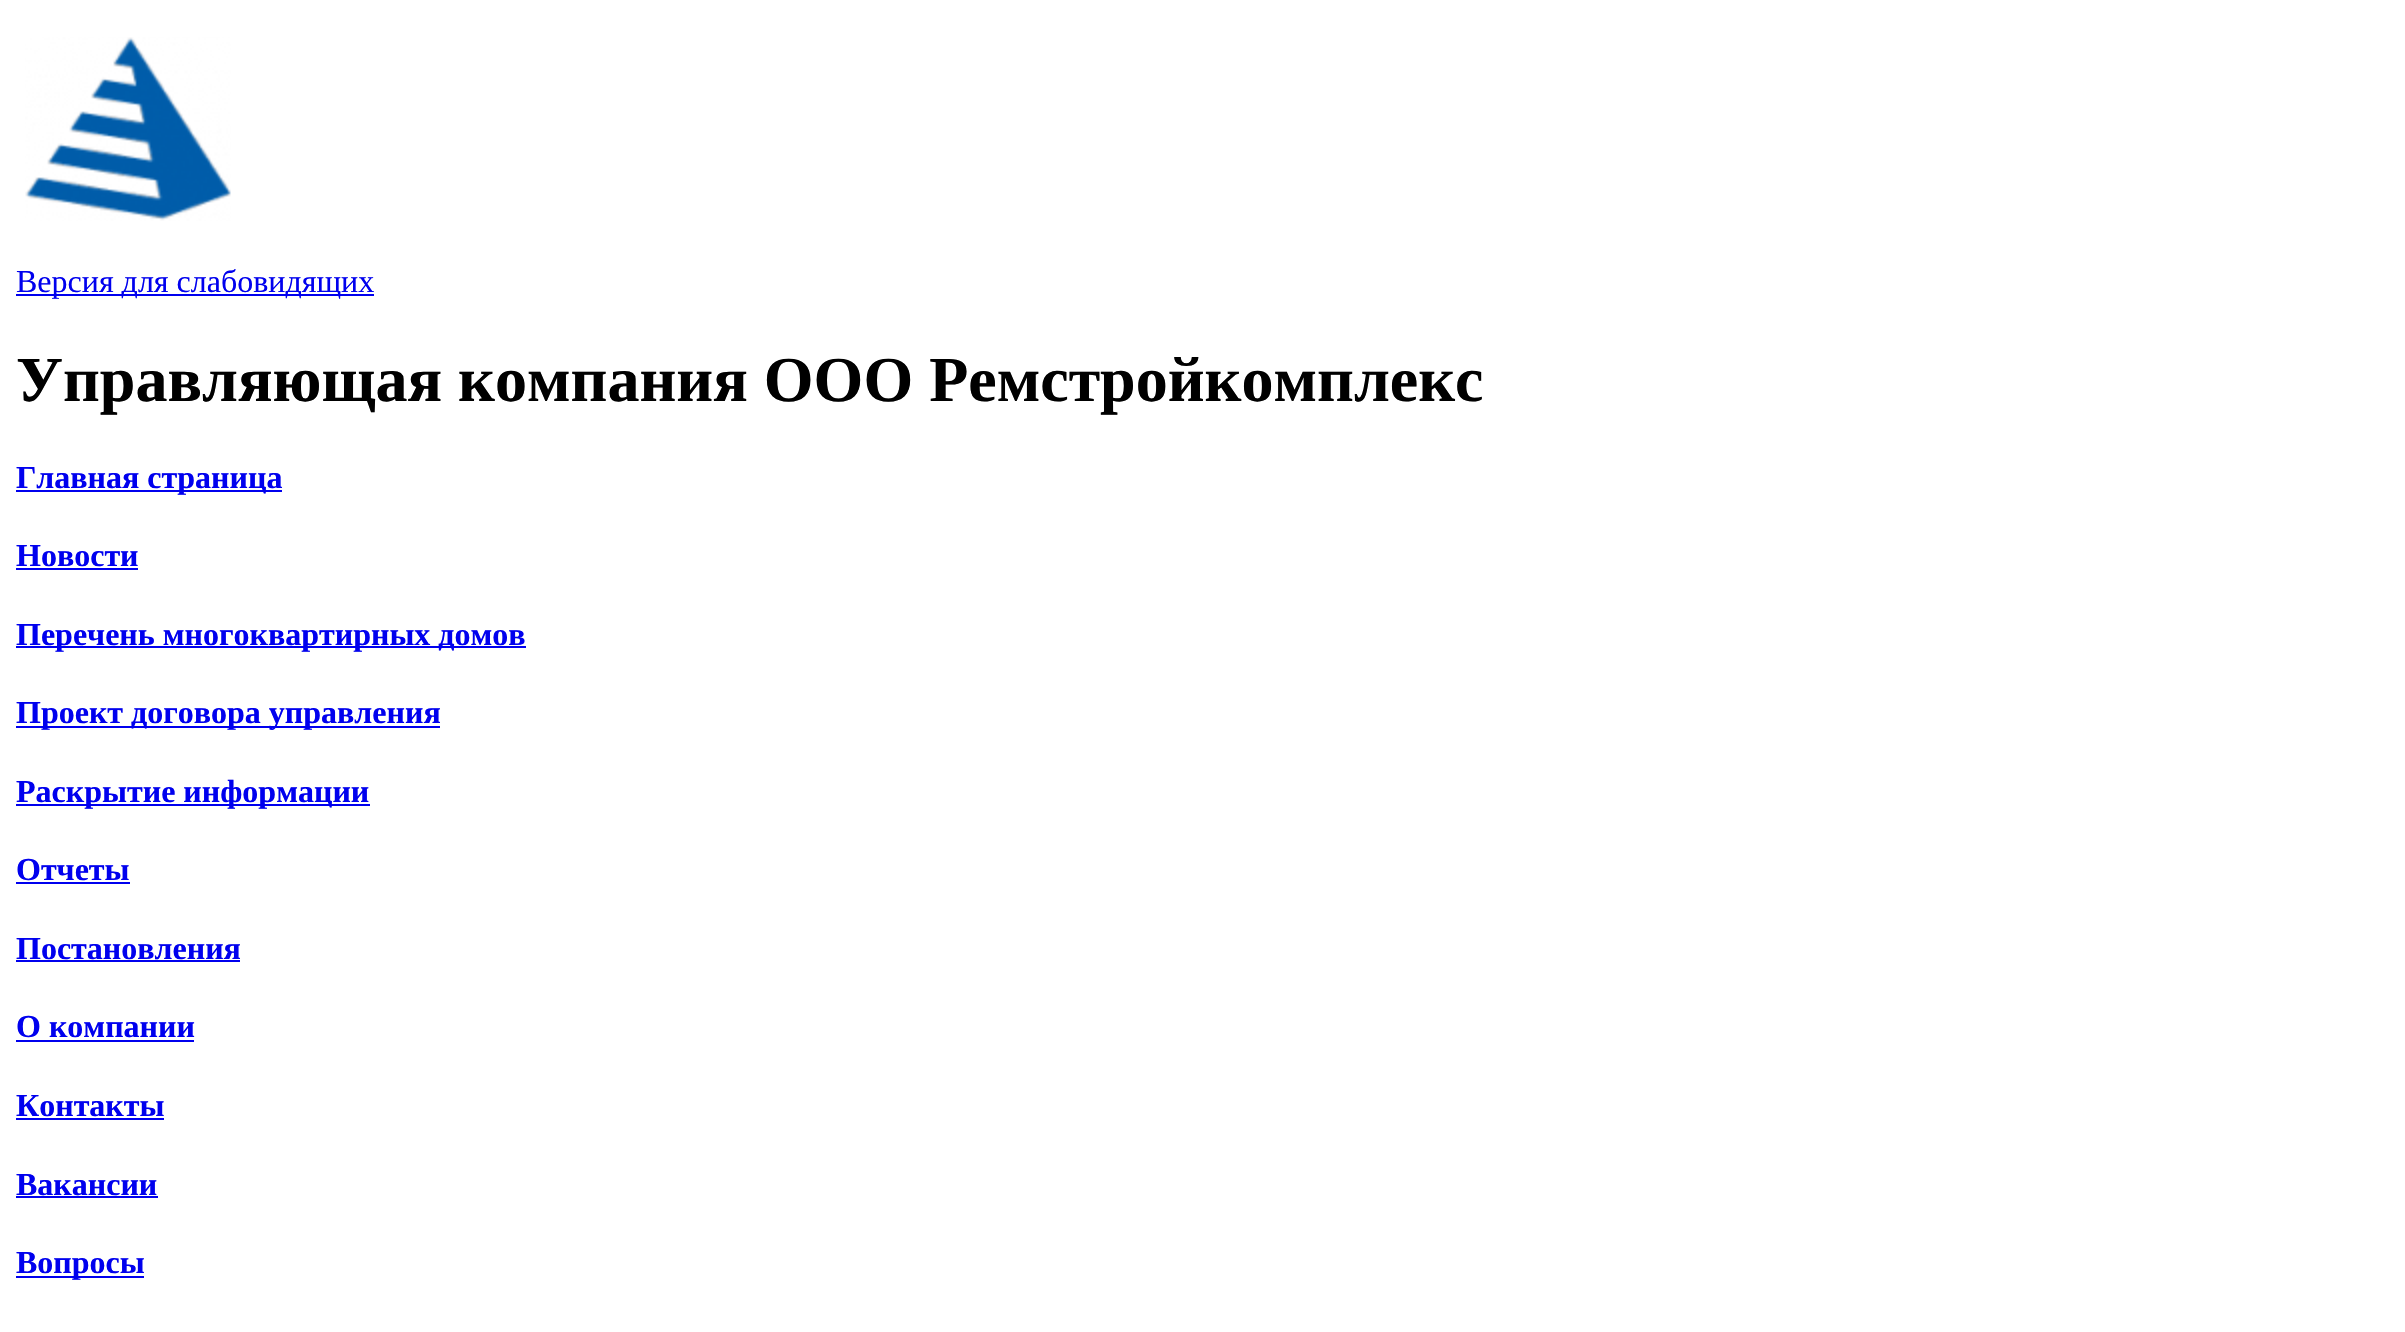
#include "include/core/SkBlurTypes.h"
#include "include/core/SkCanvas.h"
#include "include/core/SkData.h"
#include "include/core/SkFont.h"
#include "include/core/SkFontMgr.h"
#include "include/core/SkImage.h"
#include "include/core/SkMaskFilter.h"
#include "include/core/SkPaint.h"
#include "include/core/SkPathBuilder.h"
#include "include/core/SkTextBlob.h"
#include "include/effects/SkDashPathEffect.h"
#include "include/effects/SkGradientShader.h"
#include "include/utils/SkParsePath.h"

extern sk_sp<SkFontMgr> fontMgr;

void draw(SkCanvas* canvas) {
  SkPaint p;
  p.setAntiAlias(true);
  canvas->clear(SK_ColorWHITE);
  canvas->drawImageRect(SkImages::DeferredFromEncodedData(SkData::MakeFromFileName("images/1.png")), SkRect::MakeLTRB(25, 37, 231, 221), SkSamplingOptions());
  p.setColor(SkColorSetRGB(0, 0, 238));
  canvas->drawRect(SkRect::MakeLTRB(16, 294, 374, 296), p);
  canvas->drawRect(SkRect::MakeLTRB(16, 490, 282, 492), p);
  canvas->drawRect(SkRect::MakeLTRB(16, 568, 138, 570), p);
  canvas->drawRect(SkRect::MakeLTRB(16, 646, 526, 648), p);
  canvas->drawRect(SkRect::MakeLTRB(16, 726, 440, 728), p);
  canvas->drawRect(SkRect::MakeLTRB(16, 804, 370, 806), p);
  canvas->drawRect(SkRect::MakeLTRB(16, 882, 130, 884), p);
  canvas->drawRect(SkRect::MakeLTRB(16, 960, 240, 962), p);
  canvas->drawRect(SkRect::MakeLTRB(16, 1040, 194, 1042), p);
  canvas->drawRect(SkRect::MakeLTRB(16, 1118, 164, 1120), p);
  canvas->drawRect(SkRect::MakeLTRB(16, 1196, 158, 1198), p);
  canvas->drawRect(SkRect::MakeLTRB(16, 1276, 144, 1278), p);
  SkFont font1(fontMgr->matchFamilyStyle("Liberation Serif", SkFontStyle::Normal()), 32);
  font1.setSubpixel(true);
  canvas->drawString("Версия для слабовидящих", 16, 292, font1, p);
  SkFont font2(fontMgr->matchFamilyStyle("Liberation Serif", SkFontStyle::Bold()), 64);
  font2.setSubpixel(true);
  p.setColor(SK_ColorBLACK);
  canvas->drawString("Управляющая компания ООО Ремстройкомплекс", 16, 401, font2, p);
  SkFont font3(fontMgr->matchFamilyStyle("Liberation Serif", SkFontStyle::Bold()), 32);
  font3.setSubpixel(true);
  p.setColor(SkColorSetRGB(0, 0, 238));
  canvas->drawString("Главная страница", 16, 488, font3, p);
  canvas->drawString("Новости", 16, 566, font3, p);
  canvas->drawString("Перечень многоквартирных домов", 16, 645, font3, p);
  canvas->drawString("Проект договора управления", 16, 723, font3, p);
  canvas->drawString("Раскрытие информации", 16, 802, font3, p);
  canvas->drawString("Отчеты", 16, 880, font3, p);
  canvas->drawString("Постановления", 16, 959, font3, p);
  canvas->drawString("О компании", 16, 1037, font3, p);
  canvas->drawString("Контакты", 16, 1116, font3, p);
  canvas->drawString("Вакансии", 16, 1195, font3, p);
  canvas->drawString("Вопросы", 16, 1273, font3, p);
}
